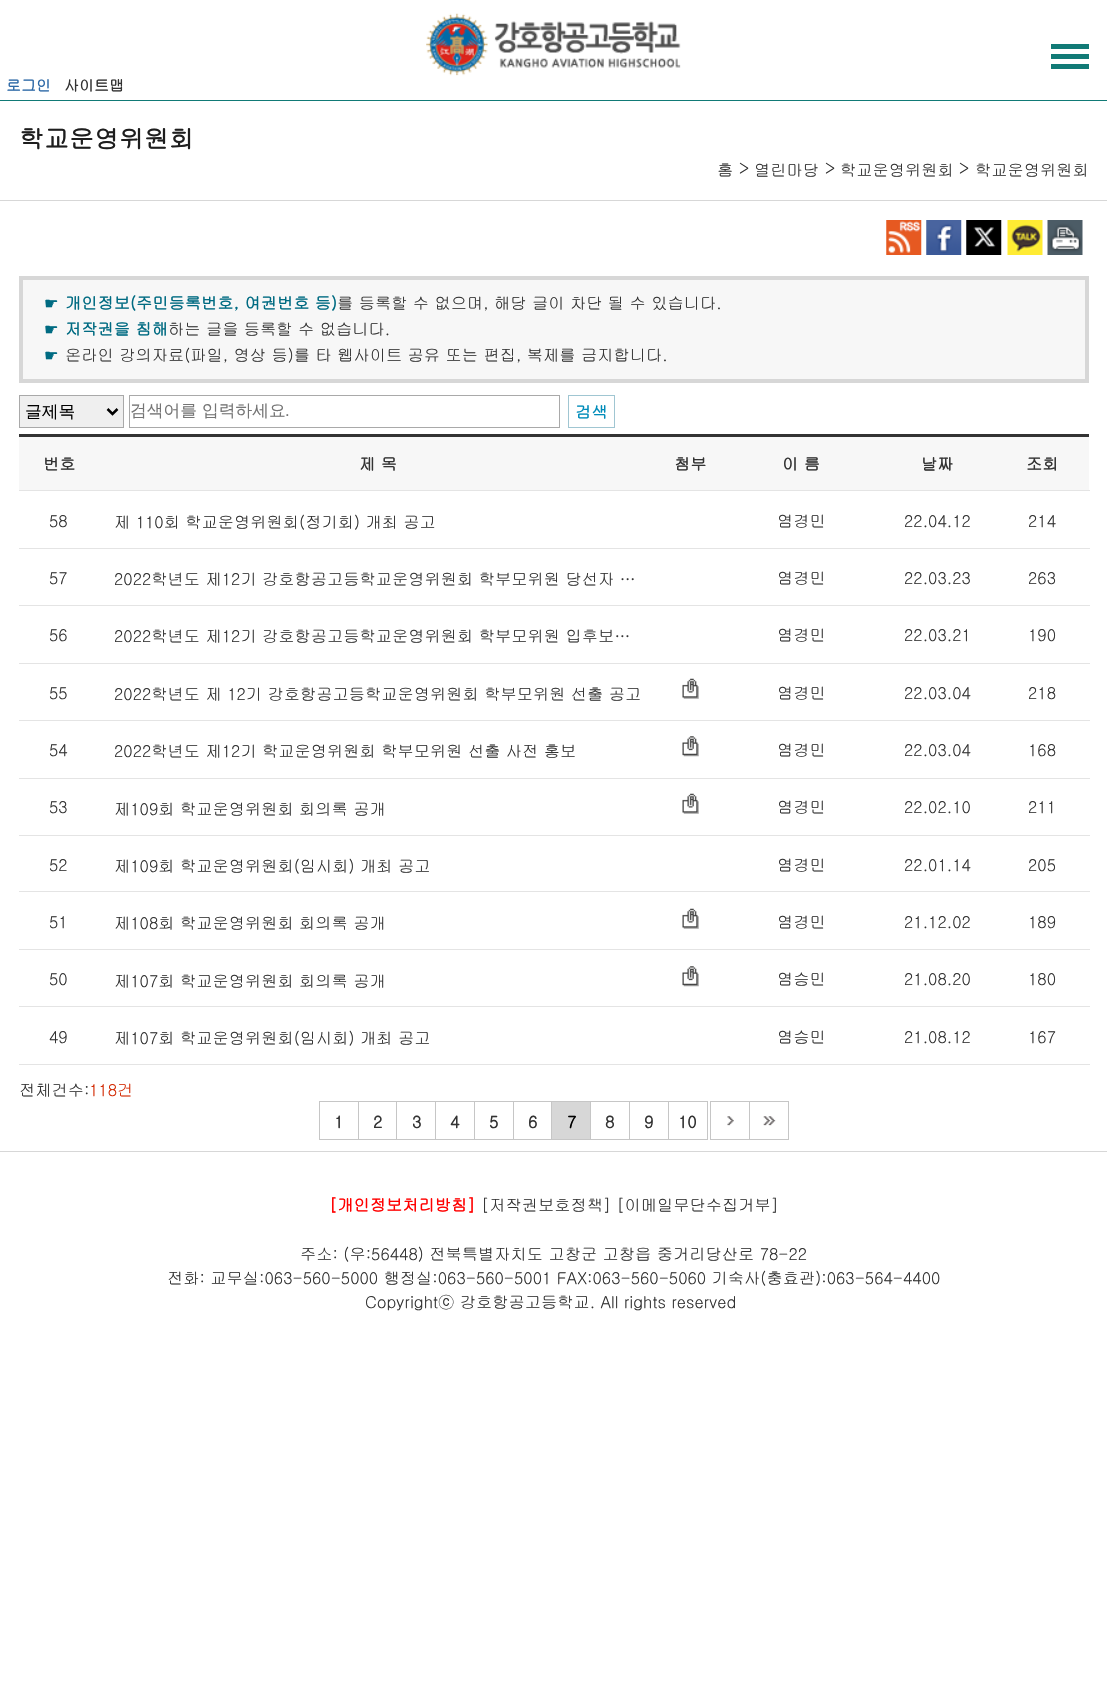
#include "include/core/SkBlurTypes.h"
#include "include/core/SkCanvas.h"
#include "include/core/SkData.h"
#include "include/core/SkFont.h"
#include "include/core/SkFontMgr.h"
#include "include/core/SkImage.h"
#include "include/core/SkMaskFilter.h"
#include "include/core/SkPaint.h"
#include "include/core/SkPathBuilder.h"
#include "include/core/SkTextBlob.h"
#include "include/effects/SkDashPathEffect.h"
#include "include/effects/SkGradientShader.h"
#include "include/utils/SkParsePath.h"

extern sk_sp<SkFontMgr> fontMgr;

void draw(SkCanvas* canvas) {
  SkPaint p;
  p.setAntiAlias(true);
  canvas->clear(SK_ColorWHITE);
  p.setColor(SkColorSetRGB(17, 122, 118));
  canvas->drawRect(SkRect::MakeLTRB(0, 100, 1107, 101), p);
  canvas->drawImageRect(SkImages::DeferredFromEncodedData(SkData::MakeFromFileName("images/1.png")), SkRect::MakeLTRB(426, 13, 681, 76), SkSamplingOptions());
  canvas->drawRect(SkRect::MakeLTRB(1051, 44, 1089, 49), p);
  canvas->drawRect(SkRect::MakeLTRB(1051, 54, 1089, 59), p);
  canvas->drawRect(SkRect::MakeLTRB(1051, 64, 1089, 69), p);
  p.setColor(SkColorSetRGB(215, 215, 215));
  canvas->drawRect(SkRect::MakeLTRB(0, 200, 1107, 201), p);
  canvas->drawImageRect(SkImages::DeferredFromEncodedData(SkData::MakeFromFileName("images/2.png")), SkRect::MakeLTRB(886, 220, 922, 255), SkSamplingOptions());
  canvas->drawImageRect(SkImages::DeferredFromEncodedData(SkData::MakeFromFileName("images/3.png")), SkRect::MakeLTRB(926, 220, 962, 255), SkSamplingOptions());
  canvas->drawImageRect(SkImages::DeferredFromEncodedData(SkData::MakeFromFileName("images/4.png")), SkRect::MakeLTRB(966, 220, 1002, 255), SkSamplingOptions());
  canvas->drawImageRect(SkImages::DeferredFromEncodedData(SkData::MakeFromFileName("images/5.png")), SkRect::MakeLTRB(1007, 220, 1043, 255), SkSamplingOptions());
  canvas->drawImageRect(SkImages::DeferredFromEncodedData(SkData::MakeFromFileName("images/6.png")), SkRect::MakeLTRB(1047, 220, 1083, 255), SkSamplingOptions());
  p.setColor(SkColorSetRGB(247, 247, 247));
  canvas->drawRect(SkRect::MakeLTRB(21, 278, 1087, 381), p);
  p.setStyle(SkPaint::kStroke_Style);
  p.setStrokeWidth(4);
  p.setColor(SkColorSetRGB(215, 215, 215));
  canvas->drawRect(SkRect::MakeLTRB(21, 278, 1087, 381), p);
  p.setStyle(SkPaint::kFill_Style);
  p.setColor(SkColorSetRGB(239, 239, 239));
  canvas->drawRect(SkRect::MakeLTRB(19.5f, 395.5f, 123.5f, 427.5f), p);
  p.setStyle(SkPaint::kStroke_Style);
  p.setStrokeWidth(1);
  p.setColor(SkColorSetRGB(169, 169, 169));
  canvas->drawRect(SkRect::MakeLTRB(19.5f, 395.5f, 123.5f, 427.5f), p);
  p.setStrokeWidth(2.5f);
  p.setColor(SK_ColorBLACK);
  canvas->drawPath(SkPathBuilder().moveTo(107.5f, 409).lineTo(112.5f, 414).lineTo(117.5f, 409).detach(), p);
  p.setStrokeWidth(1);
  p.setColor(SkColorSetRGB(169, 169, 169));
  canvas->drawRect(SkRect::MakeLTRB(129.5f, 395.5f, 559.5f, 427.5f), p);
  p.setColor(SkColorSetRGB(160, 198, 210));
  canvas->drawRect(SkRect::MakeLTRB(568.5f, 395.5f, 614.5f, 427.5f), p);
  p.setStyle(SkPaint::kFill_Style);
  p.setColor(SkColorSetRGB(51, 51, 51));
  canvas->drawRect(SkRect::MakeLTRB(19, 434, 1089, 437), p);
  p.setColor(SkColorSetRGB(247, 247, 247));
  canvas->drawRect(SkRect::MakeLTRB(19, 437, 1089, 490), p);
  p.setColor(SkColorSetRGB(228, 228, 228));
  canvas->drawRect(SkRect::MakeLTRB(19, 490, 1090, 491), p);
  canvas->drawRect(SkRect::MakeLTRB(19, 548, 1090, 549), p);
  canvas->drawRect(SkRect::MakeLTRB(19, 605, 1090, 606), p);
  canvas->drawRect(SkRect::MakeLTRB(19, 663, 1090, 664), p);
  canvas->drawImageRect(SkImages::DeferredFromEncodedData(SkData::MakeFromFileName("images/7.png")), SkRect::MakeLTRB(682, 678, 699, 699), SkSamplingOptions());
  canvas->drawRect(SkRect::MakeLTRB(19, 720, 1090, 721), p);
  canvas->drawImageRect(SkImages::DeferredFromEncodedData(SkData::MakeFromFileName("images/8.png")), SkRect::MakeLTRB(682, 736, 699, 757), SkSamplingOptions());
  canvas->drawRect(SkRect::MakeLTRB(19, 778, 1090, 779), p);
  canvas->drawImageRect(SkImages::DeferredFromEncodedData(SkData::MakeFromFileName("images/7.png")), SkRect::MakeLTRB(682, 793, 699, 814), SkSamplingOptions());
  canvas->drawRect(SkRect::MakeLTRB(19, 835, 1090, 836), p);
  canvas->drawRect(SkRect::MakeLTRB(19, 891, 1090, 892), p);
  canvas->drawImageRect(SkImages::DeferredFromEncodedData(SkData::MakeFromFileName("images/7.png")), SkRect::MakeLTRB(682, 908, 699, 929), SkSamplingOptions());
  canvas->drawRect(SkRect::MakeLTRB(19, 949, 1090, 950), p);
  canvas->drawImageRect(SkImages::DeferredFromEncodedData(SkData::MakeFromFileName("images/8.png")), SkRect::MakeLTRB(682, 966, 699, 987), SkSamplingOptions());
  canvas->drawRect(SkRect::MakeLTRB(19, 1006, 1090, 1007), p);
  canvas->drawRect(SkRect::MakeLTRB(19, 1064, 1090, 1065), p);
  p.setColor(SkColorSetRGB(198, 198, 198));
  canvas->drawRect(SkRect::MakeLTRB(319, 1101, 668, 1102), p);
  canvas->drawRect(SkRect::MakeLTRB(319, 1139, 668, 1140), p);
  canvas->drawRect(SkRect::MakeLTRB(319, 1101, 320, 1140), p);
  canvas->drawRect(SkRect::MakeLTRB(358, 1101, 359, 1140), p);
  canvas->drawRect(SkRect::MakeLTRB(396, 1101, 397, 1140), p);
  canvas->drawRect(SkRect::MakeLTRB(435, 1101, 436, 1140), p);
  canvas->drawRect(SkRect::MakeLTRB(474, 1101, 475, 1140), p);
  canvas->drawRect(SkRect::MakeLTRB(513, 1101, 514, 1140), p);
  p.setColor(SkColorSetRGB(215, 215, 215));
  canvas->drawRect(SkRect::MakeLTRB(552, 1102, 590, 1139), p);
  p.setColor(SkColorSetRGB(198, 198, 198));
  canvas->drawRect(SkRect::MakeLTRB(551, 1101, 552, 1140), p);
  canvas->drawRect(SkRect::MakeLTRB(590, 1101, 591, 1140), p);
  canvas->drawRect(SkRect::MakeLTRB(629, 1101, 630, 1140), p);
  p.setStyle(SkPaint::kStroke_Style);
  canvas->drawRect(SkRect::MakeLTRB(668.5f, 1101.5f, 707.5f, 1139.5f), p);
  canvas->drawImageRect(SkImages::DeferredFromEncodedData(SkData::MakeFromFileName("images/9.png")), SkRect::MakeLTRB(727, 1116, 734, 1126), SkSamplingOptions());
  p.setStyle(SkPaint::kFill_Style);
  canvas->drawRect(SkRect::MakeLTRB(710, 1101, 749, 1102), p);
  canvas->drawRect(SkRect::MakeLTRB(710, 1139, 749, 1140), p);
  canvas->drawRect(SkRect::MakeLTRB(710, 1101, 711, 1140), p);
  canvas->drawImageRect(SkImages::DeferredFromEncodedData(SkData::MakeFromFileName("images/10.png")), SkRect::MakeLTRB(763, 1116, 776, 1126), SkSamplingOptions());
  p.setStyle(SkPaint::kStroke_Style);
  canvas->drawRect(SkRect::MakeLTRB(749.5f, 1101.5f, 788.5f, 1139.5f), p);
  p.setStyle(SkPaint::kFill_Style);
  p.setColor(SkColorSetRGB(215, 215, 215));
  canvas->drawRect(SkRect::MakeLTRB(0, 1151, 1107, 1152), p);
  SkFont font1(fontMgr->matchFamilyStyle("Gulim", SkFontStyle::Bold()), 15);
  font1.setSubpixel(true);
  p.setColor(SkColorSetRGB(45, 105, 167));
  canvas->drawString("로그인", 6, 91, font1, p);
  p.setColor(SkColorSetRGB(51, 51, 51));
  canvas->drawString("사이트맵", 64, 91, font1, p);
  SkFont font2(fontMgr->matchFamilyStyle("Gulim", SkFontStyle::Bold()), 25);
  font2.setSubpixel(true);
  p.setColor(SkColorSetRGB(30, 30, 30));
  canvas->drawString("학교운영위원회", 19, 148, font2, p);
  SkFont font3(fontMgr->matchFamilyStyle("Gulim", SkFontStyle::Normal()), 16.25f);
  font3.setSubpixel(true);
  p.setColor(SkColorSetRGB(51, 51, 51));
  canvas->drawString("홈", 717, 176, font3, p);
  canvas->drawString(">", 739, 174, font3, p);
  canvas->drawString("열린마당", 754, 176, font3, p);
  canvas->drawString(">", 825, 174, font3, p);
  canvas->drawString("학교운영위원회", 840, 176, font3, p);
  canvas->drawString(">", 959, 174, font3, p);
  canvas->drawString("학교운영위원회", 975, 176, font3, p);
  SkFont font4(fontMgr->matchFamilyStyle("DejaVu Sans", SkFontStyle::Normal()), 16.25f);
  font4.setSubpixel(true);
  p.setColor(SkColorSetRGB(0, 107, 130));
  canvas->drawString("☛", 44, 309, font4, p);
  SkFont font5(fontMgr->matchFamilyStyle("Gulim", SkFontStyle::Bold()), 16.25f);
  font5.setSubpixel(true);
  canvas->drawString("개인정보(주민등록번호, 여권번호 등)", 65, 309, font5, p);
  p.setColor(SkColorSetRGB(51, 51, 51));
  canvas->drawString("를 등록할 수 없으며, 해당 글이 차단 될 수 있습니다.", 337, 309, font3, p);
  p.setColor(SkColorSetRGB(0, 107, 130));
  canvas->drawString("☛", 44, 335, font4, p);
  canvas->drawString("저작권을 침해", 65, 335, font5, p);
  p.setColor(SkColorSetRGB(51, 51, 51));
  canvas->drawString("하는 글을 등록할 수 없습니다.", 168, 335, font3, p);
  p.setColor(SkColorSetRGB(0, 107, 130));
  canvas->drawString("☛", 44, 361, font4, p);
  p.setColor(SkColorSetRGB(51, 51, 51));
  canvas->drawString("온라인 강의자료(파일, 영상 등)를 타 웹사이트 공유 또는 편집, 복제를 금지합니다.", 65, 361, font3, p);
  SkFont font6(fontMgr->matchFamilyStyle("WenQuanYi Zen Hei", SkFontStyle(500, SkFontStyle::kNormal_Width, SkFontStyle::kUpright_Slant)), 16.75f);
  font6.setSubpixel(true);
  p.setColor(SK_ColorBLACK);
  canvas->drawString("글제목", 25, 417, font6, p);
  p.setColor(SkColorSetRGB(117, 117, 117));
  canvas->drawString("검색어를 입력하세요", 130, 416, font6, p);
  SkFont font7(fontMgr->matchFamilyStyle("Liberation Sans", SkFontStyle::Normal()), 16.75f);
  font7.setSubpixel(true);
  canvas->drawString(".", 285, 416, font7, p);
  p.setColor(SkColorSetRGB(0, 140, 186));
  canvas->drawString("검색", 575, 418, font5, p);
  p.setColor(SkColorSetRGB(51, 51, 51));
  canvas->drawString("번호", 43, 470, font5, p);
  canvas->drawString("제 목", 359, 470, font5, p);
  canvas->drawString("첨부", 674, 470, font5, p);
  canvas->drawString("이 름", 782, 470, font5, p);
  canvas->drawString("날짜", 921, 470, font5, p);
  canvas->drawString("조회", 1026, 470, font5, p);
  canvas->drawString("58", 49, 527, font3, p);
  canvas->drawString("제 110회 학교운영위원회(정기회) 개최 공고", 114, 528, font3, p);
  canvas->drawString("염경민", 777, 527, font3, p);
  canvas->drawString("22.04.12", 904, 527, font3, p);
  canvas->drawString("214", 1028, 527, font3, p);
  canvas->drawString("57", 49, 584, font3, p);
  canvas->drawString("2022학년도 제12기 강호항공고등학교운영위원회 학부모위원 당선자 …", 114, 585, font3, p);
  canvas->drawString("염경민", 777, 584, font3, p);
  canvas->drawString("22.03.23", 904, 584, font3, p);
  canvas->drawString("263", 1028, 584, font3, p);
  canvas->drawString("56", 49, 641, font3, p);
  canvas->drawString("2022학년도 제12기 강호항공고등학교운영위원회 학부모위원 입후보…", 114, 642, font3, p);
  canvas->drawString("염경민", 777, 641, font3, p);
  canvas->drawString("22.03.21", 904, 641, font3, p);
  canvas->drawString("190", 1028, 641, font3, p);
  canvas->drawString("55", 49, 699, font3, p);
  canvas->drawString("2022학년도 제 12기 강호항공고등학교운영위원회 학부모위원 선출 공고", 114, 700, font3, p);
  canvas->drawString("염경민", 777, 699, font3, p);
  canvas->drawString("22.03.04", 904, 699, font3, p);
  canvas->drawString("218", 1028, 699, font3, p);
  canvas->drawString("54", 49, 756, font3, p);
  canvas->drawString("2022학년도 제12기 학교운영위원회 학부모위원 선출 사전 홍보", 114, 757, font3, p);
  canvas->drawString("염경민", 777, 756, font3, p);
  canvas->drawString("22.03.04", 904, 756, font3, p);
  canvas->drawString("168", 1028, 756, font3, p);
  canvas->drawString("53", 49, 813, font3, p);
  canvas->drawString("제109회 학교운영위원회 회의록 공개", 114, 815, font3, p);
  canvas->drawString("염경민", 777, 813, font3, p);
  canvas->drawString("22.02.10", 904, 813, font3, p);
  canvas->drawString("211", 1028, 813, font3, p);
  canvas->drawString("52", 49, 871, font3, p);
  canvas->drawString("제109회 학교운영위원회(임시회) 개최 공고", 114, 872, font3, p);
  canvas->drawString("염경민", 777, 871, font3, p);
  canvas->drawString("22.01.14", 904, 871, font3, p);
  canvas->drawString("205", 1028, 871, font3, p);
  canvas->drawString("51", 49, 928, font3, p);
  canvas->drawString("제108회 학교운영위원회 회의록 공개", 114, 929, font3, p);
  canvas->drawString("염경민", 777, 928, font3, p);
  canvas->drawString("21.12.02", 904, 928, font3, p);
  canvas->drawString("189", 1028, 928, font3, p);
  canvas->drawString("50", 49, 985, font3, p);
  canvas->drawString("제107회 학교운영위원회 회의록 공개", 114, 987, font3, p);
  canvas->drawString("염승민", 777, 985, font3, p);
  canvas->drawString("21.08.20", 904, 985, font3, p);
  canvas->drawString("180", 1028, 985, font3, p);
  canvas->drawString("49", 49, 1043, font3, p);
  canvas->drawString("제107회 학교운영위원회(임시회) 개최 공고", 114, 1044, font3, p);
  canvas->drawString("염승민", 777, 1043, font3, p);
  canvas->drawString("21.08.12", 904, 1043, font3, p);
  canvas->drawString("167", 1028, 1043, font3, p);
  canvas->drawString("전체건수:", 19, 1096, font3, p);
  p.setColor(SkColorSetRGB(211, 42, 3));
  canvas->drawString("118건", 89, 1096, font3, p);
  p.setColor(SkColorSetRGB(51, 51, 51));
  canvas->drawString("1", 334, 1128, font5, p);
  canvas->drawString("2", 373, 1128, font5, p);
  canvas->drawString("3", 412, 1128, font5, p);
  canvas->drawString("4", 450, 1128, font5, p);
  canvas->drawString("5", 489, 1128, font5, p);
  canvas->drawString("6", 528, 1128, font5, p);
  p.setColor(SK_ColorBLACK);
  canvas->drawString("7", 567, 1128, font5, p);
  p.setColor(SkColorSetRGB(51, 51, 51));
  canvas->drawString("8", 605, 1128, font5, p);
  canvas->drawString("9", 644, 1128, font5, p);
  canvas->drawString("10", 678, 1128, font5, p);
  p.setColor(SkColorSetRGB(255, 0, 0));
  canvas->drawString("[개인정보처리방침]", 329, 1211, font5, p);
  p.setColor(SkColorSetRGB(51, 51, 51));
  canvas->drawString("[저작권보호정책] [이메일무단수집거부]", 481, 1211, font3, p);
  canvas->drawString("주소: (우:56448) 전북특별자치도 고창군 고창읍 중거리당산로 78-22", 300, 1260, font3, p);
  canvas->drawString("전화: 교무실:063-560-5000 행정실:063-560-5001 FAX:063-560-5060 기숙사(충효관):063-564-4400", 167, 1284, font3, p);
  canvas->drawString("Copyrightⓒ 강호항공고등학교. All rights reserved", 365, 1308, font3, p);
}
